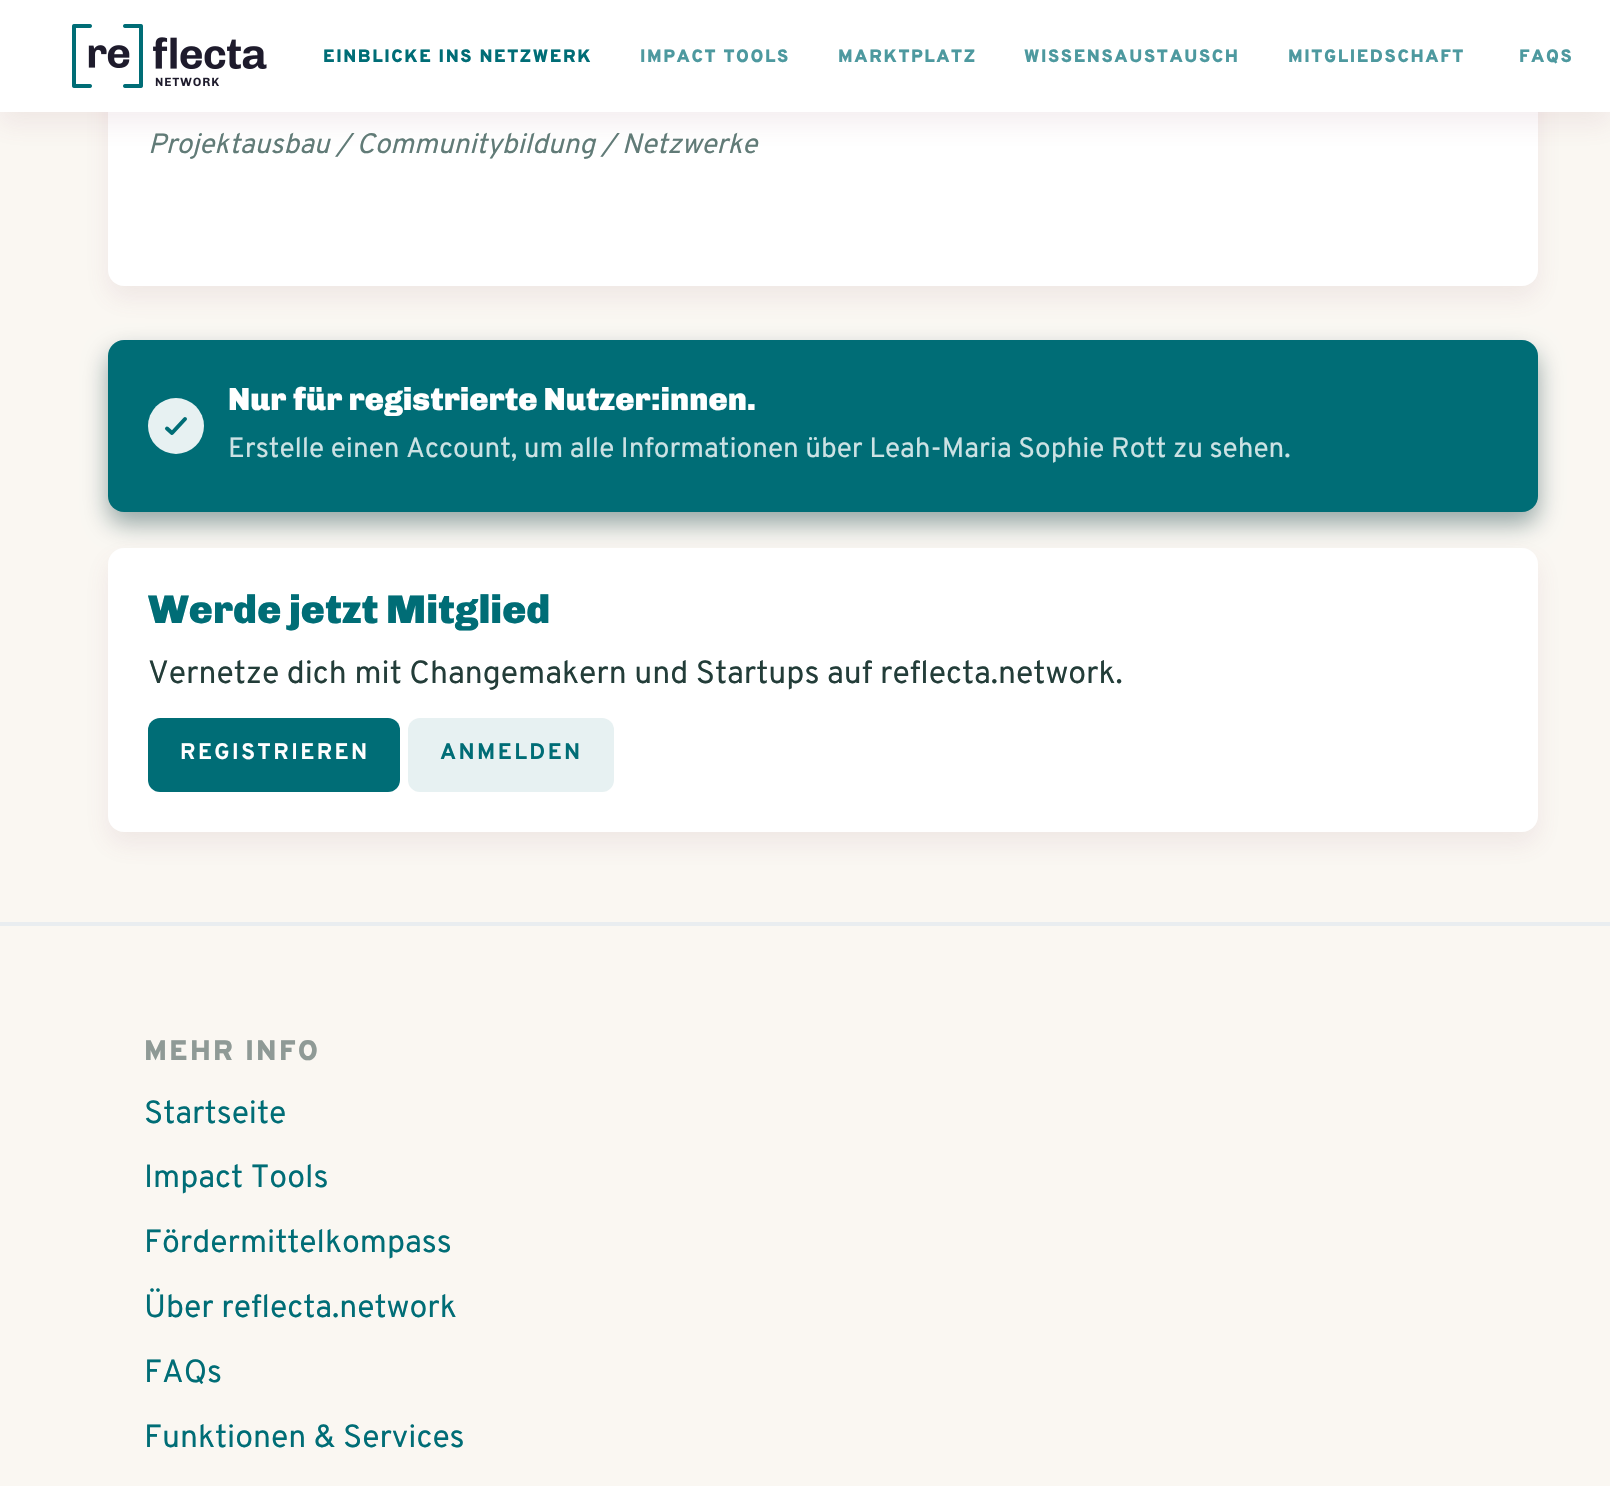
#include "include/core/SkBlurTypes.h"
#include "include/core/SkCanvas.h"
#include "include/core/SkData.h"
#include "include/core/SkFont.h"
#include "include/core/SkFontMgr.h"
#include "include/core/SkImage.h"
#include "include/core/SkMaskFilter.h"
#include "include/core/SkPaint.h"
#include "include/core/SkPathBuilder.h"
#include "include/core/SkTextBlob.h"
#include "include/effects/SkDashPathEffect.h"
#include "include/effects/SkGradientShader.h"
#include "include/utils/SkParsePath.h"

extern sk_sp<SkFontMgr> fontMgr;

void draw(SkCanvas* canvas) {
  SkPaint p;
  p.setAntiAlias(true);
  auto spacedText = [&](const char* s, float x, float y, const SkFont& font, const SkPaint& ink, float letter, float word) {
    std::vector<SkGlyphID> glyphs(font.countText(s, strlen(s), SkTextEncoding::kUTF8));
    std::vector<float> xs(glyphs.size());
    font.textToGlyphs(s, strlen(s), SkTextEncoding::kUTF8, glyphs);
    font.getXPos(glyphs, xs, x);
    float extra = 0;
    for (size_t i = 0; i < glyphs.size(); i++) {
      xs[i] += extra;
      extra += letter + word * (glyphs[i] == font.unicharToGlyph(' '));
    }
    canvas->drawTextBlob(SkTextBlob::MakeFromPosHGlyphs(glyphs, xs, y, font), 0, 0, ink);
  };
  canvas->clear(SkColorSetRGB(250, 247, 242));
  p.setColor(SkColorSetARGB(26, 151, 92, 105));
  p.setMaskFilter(SkMaskFilter::MakeBlur(kNormal_SkBlurStyle, 12));
  canvas->drawRoundRect(SkRect::MakeLTRB(108, -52, 1538, 298), 16, 16, p);
  p.setMaskFilter(nullptr);
  p.setColor(SK_ColorWHITE);
  canvas->drawRoundRect(SkRect::MakeLTRB(108, -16, 1538, 286), 16, 16, p);
  p.setColor(SkColorSetARGB(26, 151, 92, 105));
  p.setMaskFilter(SkMaskFilter::MakeBlur(kNormal_SkBlurStyle, 12));
  canvas->drawRect(SkRect::MakeLTRB(0, 12, 1610, 124), p);
  p.setMaskFilter(nullptr);
  p.setColor(SK_ColorWHITE);
  canvas->drawRect(SkRect::MakeLTRB(0, 0, 1610, 112), p);
  canvas->drawImageRect(SkImages::DeferredFromEncodedData(SkData::MakeFromFileName("images/1.png")), SkRect::MakeLTRB(72, 24, 267, 88), SkSamplingOptions());
  p.setColor(SkColorSetARGB(102, 0, 45, 49));
  p.setMaskFilter(SkMaskFilter::MakeBlur(kNormal_SkBlurStyle, 12));
  canvas->drawRoundRect(SkRect::MakeLTRB(108, 352, 1538, 524), 16, 16, p);
  p.setMaskFilter(nullptr);
  p.setColor(SkColorSetRGB(0, 109, 118));
  canvas->drawRoundRect(SkRect::MakeLTRB(108, 340, 1538, 512), 16, 16, p);
  p.setColor(SkColorSetRGB(231, 241, 242));
  canvas->drawCircle(176, 426, 28, p);
  p.setStyle(SkPaint::kStroke_Style);
  p.setStrokeWidth(4);
  p.setStrokeCap(SkPaint::kRound_Cap);
  p.setStrokeJoin(SkPaint::kRound_Join);
  p.setColor(SkColorSetRGB(0, 109, 118));
  canvas->drawPath(SkPathBuilder().moveTo(167, 428.5f).lineTo(172, 433).lineTo(185, 419).detach(), p);
  p.setStyle(SkPaint::kFill_Style);
  p.setColor(SkColorSetARGB(26, 151, 92, 105));
  p.setMaskFilter(SkMaskFilter::MakeBlur(kNormal_SkBlurStyle, 12));
  canvas->drawRoundRect(SkRect::MakeLTRB(108, 560, 1538, 844), 16, 16, p);
  p.setMaskFilter(nullptr);
  p.setColor(SK_ColorWHITE);
  canvas->drawRoundRect(SkRect::MakeLTRB(108, 548, 1538, 832), 16, 16, p);
  p.setColor(SkColorSetRGB(0, 109, 118));
  canvas->drawRoundRect(SkRect::MakeLTRB(148, 718, 400, 792), 12, 12, p);
  p.setColor(SkColorSetRGB(231, 241, 242));
  canvas->drawRoundRect(SkRect::MakeLTRB(408, 718, 614, 792), 12, 12, p);
  p.setColor(SkColorSetRGB(233, 237, 240));
  canvas->drawRect(SkRect::MakeLTRB(0, 922, 1610, 926), p);
  SkFont font1(fontMgr->matchFamilyStyle("Overpass", SkFontStyle(900, SkFontStyle::kNormal_Width, SkFontStyle::kUpright_Slant)), 18);
  font1.setSubpixel(true);
  p.setColor(SkColorSetRGB(0, 109, 118));
  spacedText("EINBLICKE INS NETZWERK", 323, 62, font1, p, 1.6f, 0);
  p.setColor(SkColorSetRGB(77, 153, 159));
  spacedText("IMPACT TOOLS", 640, 62, font1, p, 1.6f, 0);
  spacedText("MARKTPLATZ", 838, 62, font1, p, 1.6f, 0);
  spacedText("WISSENSAUSTAUSCH", 1024, 62, font1, p, 1.6f, 0);
  spacedText("MITGLIEDSCHAFT", 1288, 62, font1, p, 1.6f, 0);
  spacedText("FAQS", 1519, 62, font1, p, 1.6f, 0);
  SkFont font2(fontMgr->matchFamilyStyle("Overpass", SkFontStyle::Italic()), 28);
  font2.setSubpixel(true);
  p.setColor(SkColorSetRGB(97, 123, 119));
  canvas->drawString("Projektausbau / Communitybildung / Netzwerke", 148, 153, font2, p);
  SkFont font3(fontMgr->matchFamilyStyle("Chivo", SkFontStyle(900, SkFontStyle::kNormal_Width, SkFontStyle::kUpright_Slant)), 32);
  font3.setSubpixel(true);
  p.setColor(SK_ColorWHITE);
  canvas->drawString("Nur für registrierte Nutzer:innen.", 228, 410, font3, p);
  SkFont font4(fontMgr->matchFamilyStyle("Overpass", SkFontStyle::Normal()), 28);
  font4.setSubpixel(true);
  p.setColor(SkColorSetRGB(204, 226, 228));
  canvas->drawString("Erstelle einen Account, um alle Informationen über Leah-Maria Sophie Rott zu sehen.", 228, 457, font4, p);
  SkFont font5(fontMgr->matchFamilyStyle("Chivo", SkFontStyle(900, SkFontStyle::kNormal_Width, SkFontStyle::kUpright_Slant)), 40);
  font5.setSubpixel(true);
  p.setColor(SkColorSetRGB(0, 109, 118));
  canvas->drawString("Werde jetzt Mitglied", 148, 623, font5, p);
  SkFont font6(fontMgr->matchFamilyStyle("Overpass", SkFontStyle::Normal()), 32);
  font6.setSubpixel(true);
  p.setColor(SkColorSetRGB(35, 61, 57));
  canvas->drawString("Vernetze dich mit Changemakern und Startups auf reflecta.network.", 148, 683, font6, p);
  SkFont font7(fontMgr->matchFamilyStyle("Overpass", SkFontStyle::Bold()), 22.5f);
  font7.setSubpixel(true);
  p.setColor(SK_ColorWHITE);
  spacedText("REGISTRIEREN", 180, 759, font7, p, 2.4f, 0);
  p.setColor(SkColorSetRGB(0, 109, 118));
  spacedText("ANMELDEN", 440, 759, font7, p, 2.4f, 0);
  SkFont font8(fontMgr->matchFamilyStyle("Overpass", SkFontStyle(900, SkFontStyle::kNormal_Width, SkFontStyle::kUpright_Slant)), 28.25f);
  font8.setSubpixel(true);
  p.setColor(SkColorSetRGB(143, 154, 150));
  spacedText("MEHR INFO", 144, 1060, font8, p, 2.4f, 0);
  p.setColor(SkColorSetRGB(0, 109, 118));
  canvas->drawString("Startseite", 144, 1123, font6, p);
  canvas->drawString("Impact Tools", 144, 1187, font6, p);
  canvas->drawString("Fördermittelkompass", 144, 1252, font6, p);
  canvas->drawString("Über reflecta.network", 144, 1317, font6, p);
  canvas->drawString("FAQs", 144, 1382, font6, p);
  canvas->drawString("Funktionen & Services", 144, 1447, font6, p);
}
